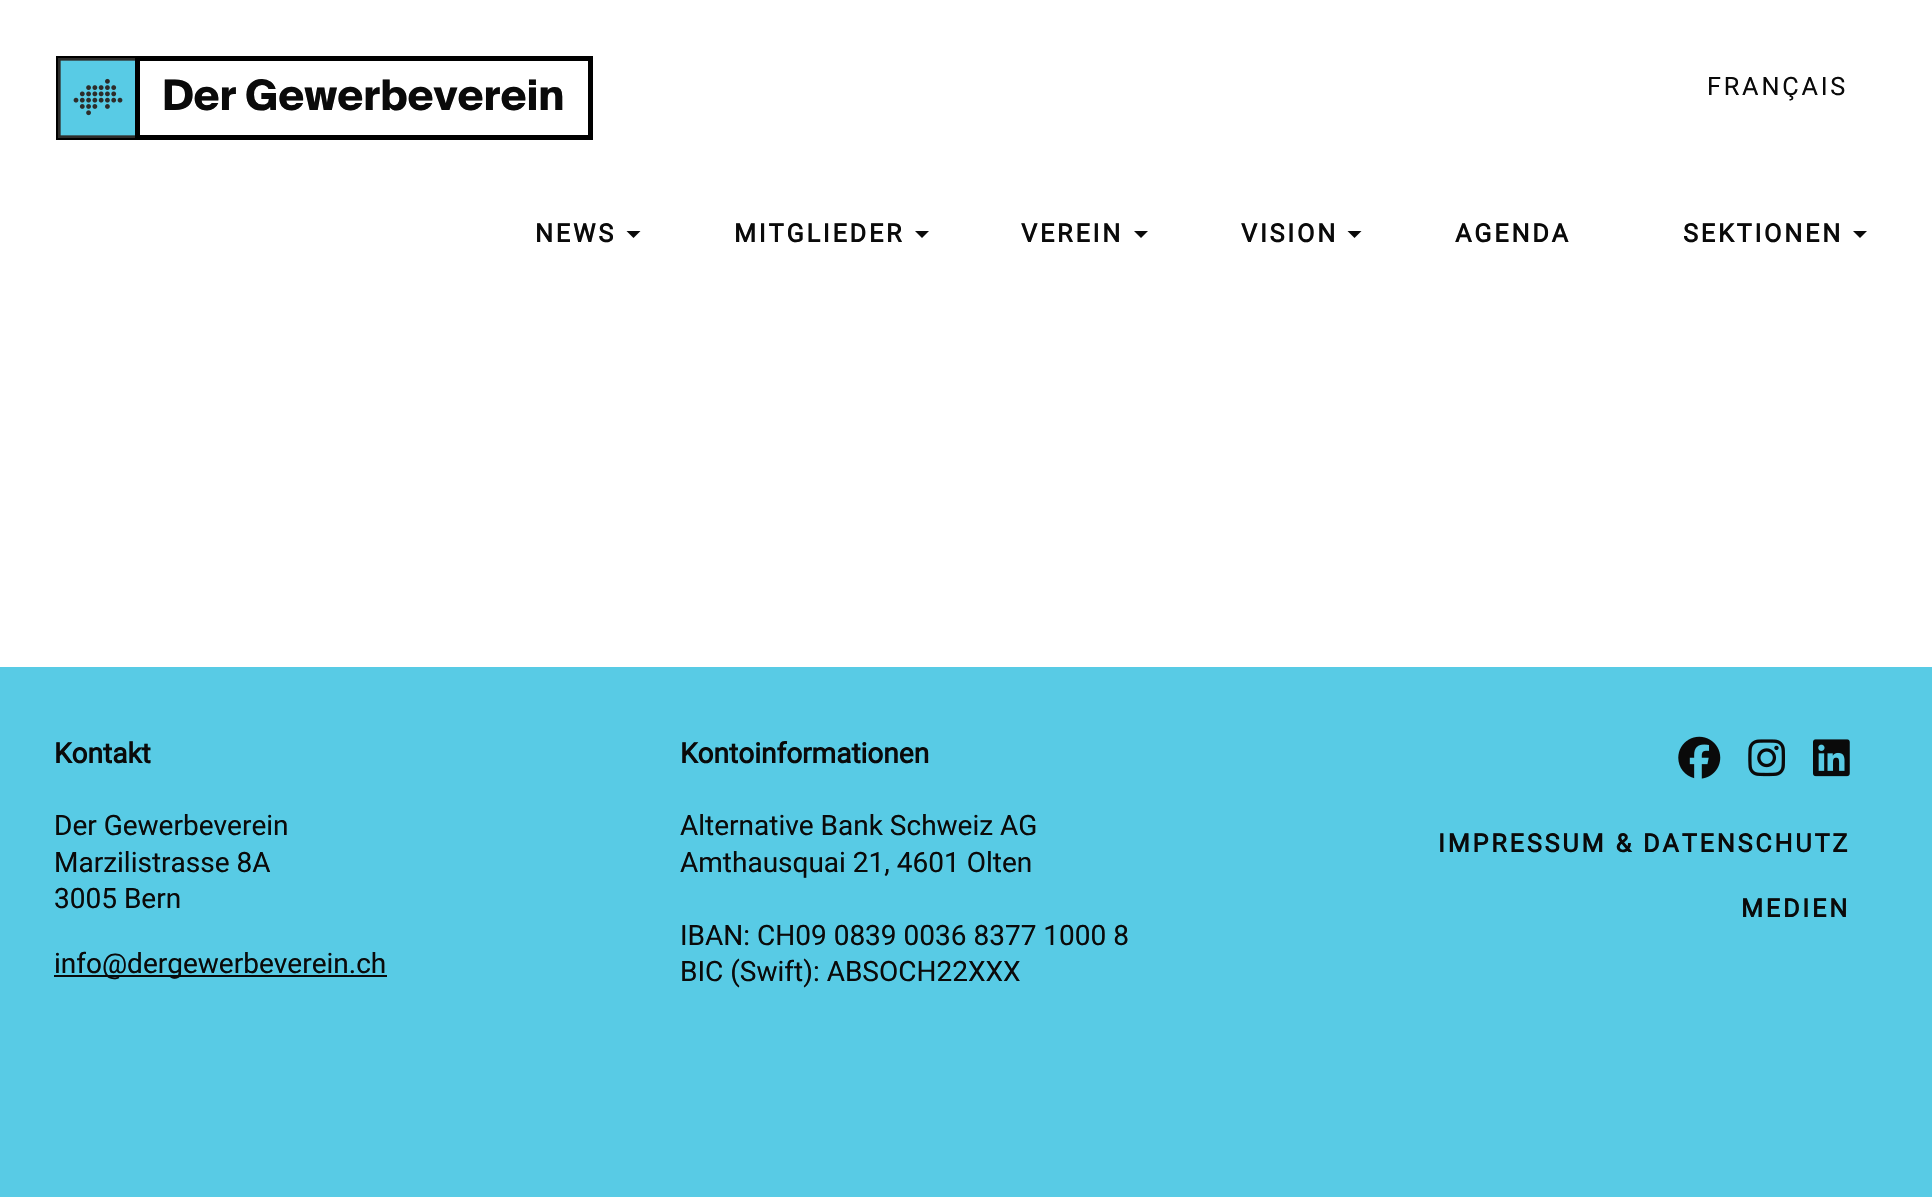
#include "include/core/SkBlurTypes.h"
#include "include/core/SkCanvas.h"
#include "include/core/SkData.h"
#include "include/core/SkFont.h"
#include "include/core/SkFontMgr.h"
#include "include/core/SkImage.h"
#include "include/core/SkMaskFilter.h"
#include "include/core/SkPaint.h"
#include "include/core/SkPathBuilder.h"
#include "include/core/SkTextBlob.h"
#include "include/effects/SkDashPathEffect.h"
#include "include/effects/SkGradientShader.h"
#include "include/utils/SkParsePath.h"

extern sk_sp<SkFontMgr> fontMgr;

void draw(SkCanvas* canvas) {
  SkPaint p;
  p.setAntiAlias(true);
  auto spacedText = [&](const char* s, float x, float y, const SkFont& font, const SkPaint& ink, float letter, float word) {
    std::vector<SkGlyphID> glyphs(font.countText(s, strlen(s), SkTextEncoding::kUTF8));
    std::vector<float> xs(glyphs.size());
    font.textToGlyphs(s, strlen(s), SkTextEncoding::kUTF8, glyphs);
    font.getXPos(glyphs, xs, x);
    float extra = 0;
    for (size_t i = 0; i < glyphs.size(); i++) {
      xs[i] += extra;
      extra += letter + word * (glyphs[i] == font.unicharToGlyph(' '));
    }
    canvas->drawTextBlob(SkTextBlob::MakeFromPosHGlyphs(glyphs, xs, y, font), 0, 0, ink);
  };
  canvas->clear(SK_ColorWHITE);
  p.setStyle(SkPaint::kStroke_Style);
  p.setStrokeWidth(2);
  p.setColor(SK_ColorBLACK);
  canvas->drawRect(SkRect::MakeLTRB(57, 57, 139, 139), p);
  canvas->drawImageRect(SkImages::DeferredFromEncodedData(SkData::MakeFromFileName("images/1.png")), SkRect::MakeLTRB(58, 58, 135, 138), SkSamplingOptions());
  p.setStrokeWidth(5);
  canvas->drawRect(SkRect::MakeLTRB(137.5f, 58.5f, 590.5f, 137.5f), p);
  p.setStyle(SkPaint::kFill_Style);
  p.setColor(SkColorSetRGB(10, 10, 10));
  canvas->drawPath(SkPathBuilder().moveTo(626.5f, 231).lineTo(640.5f, 231).lineTo(633.5f, 238).close().detach(), p);
  canvas->drawPath(SkPathBuilder().moveTo(915, 231).lineTo(929, 231).lineTo(922, 238).close().detach(), p);
  canvas->drawPath(SkPathBuilder().moveTo(1134, 231).lineTo(1148, 231).lineTo(1141, 238).close().detach(), p);
  canvas->drawPath(SkPathBuilder().moveTo(1347.5f, 231).lineTo(1361.5f, 231).lineTo(1354.5f, 238).close().detach(), p);
  canvas->drawPath(SkPathBuilder().moveTo(1853, 231).lineTo(1867, 231).lineTo(1860, 238).close().detach(), p);
  p.setColor(SkColorSetRGB(88, 203, 229));
  canvas->drawRect(SkRect::MakeLTRB(0, 667, 1932, 1197), p);
  p.setColor(SkColorSetRGB(10, 10, 10));
  canvas->drawRect(SkRect::MakeLTRB(54, 975, 387, 977), p);
  canvas->drawImageRect(SkImages::DeferredFromEncodedData(SkData::MakeFromFileName("images/2.png")), SkRect::MakeLTRB(1678, 736, 1721, 779), SkSamplingOptions());
  canvas->drawImageRect(SkImages::DeferredFromEncodedData(SkData::MakeFromFileName("images/3.png")), SkRect::MakeLTRB(1748, 739, 1785, 777), SkSamplingOptions());
  canvas->drawImageRect(SkImages::DeferredFromEncodedData(SkData::MakeFromFileName("images/4.png")), SkRect::MakeLTRB(1813, 739, 1850, 777), SkSamplingOptions());
  SkFont font1(fontMgr->matchFamilyStyle("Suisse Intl", SkFontStyle::Bold()), 42);
  font1.setSubpixel(true);
  canvas->drawString("Der Gewerbeverein", 162, 110, font1, p);
  SkFont font2(fontMgr->matchFamilyStyle("Roboto", SkFontStyle::Normal()), 25.25f);
  font2.setSubpixel(true);
  spacedText("FRANÇAIS", 1707, 95, font2, p, 2.8f, 0);
  SkFont font3(fontMgr->matchFamilyStyle("Roboto", SkFontStyle::Bold()), 25.25f);
  font3.setSubpixel(true);
  spacedText("NEWS", 535, 242, font3, p, 2.8f, 0);
  spacedText("MITGLIEDER", 734, 242, font3, p, 2.8f, 0);
  spacedText("VEREIN", 1021, 242, font3, p, 2.8f, 0);
  spacedText("VISION", 1241, 242, font3, p, 2.8f, 0);
  spacedText("AGENDA", 1455, 242, font3, p, 2.8f, 0);
  spacedText("SEKTIONEN", 1683, 242, font3, p, 2.8f, 0);
  SkFont font4(fontMgr->matchFamilyStyle("Roboto", SkFontStyle::Bold()), 28);
  font4.setSubpixel(true);
  canvas->drawString("Kontakt", 54, 763, font4, p);
  SkFont font5(fontMgr->matchFamilyStyle("Roboto", SkFontStyle::Normal()), 28);
  font5.setSubpixel(true);
  canvas->drawString("Der Gewerbeverein", 54, 835, font5, p);
  canvas->drawString("Marzilistrasse 8A", 54, 872, font5, p);
  canvas->drawString("3005 Bern", 54, 908, font5, p);
  canvas->drawString("info@dergewerbeverein.ch", 54, 973, font5, p);
  canvas->drawString("Kontoinformationen", 680, 763, font4, p);
  canvas->drawString("Alternative Bank Schweiz AG", 680, 835, font5, p);
  canvas->drawString("Amthausquai 21, 4601 Olten", 680, 872, font5, p);
  canvas->drawString("IBAN: CH09 0839 0036 8377 1000 8", 680, 945, font5, p);
  canvas->drawString("BIC (Swift): ABSOCH22XXX", 680, 981, font5, p);
  spacedText("IMPRESSUM & DATENSCHUTZ", 1438, 852, font3, p, 2.8f, 0);
  spacedText("MEDIEN", 1741, 917, font3, p, 2.8f, 0);
}
